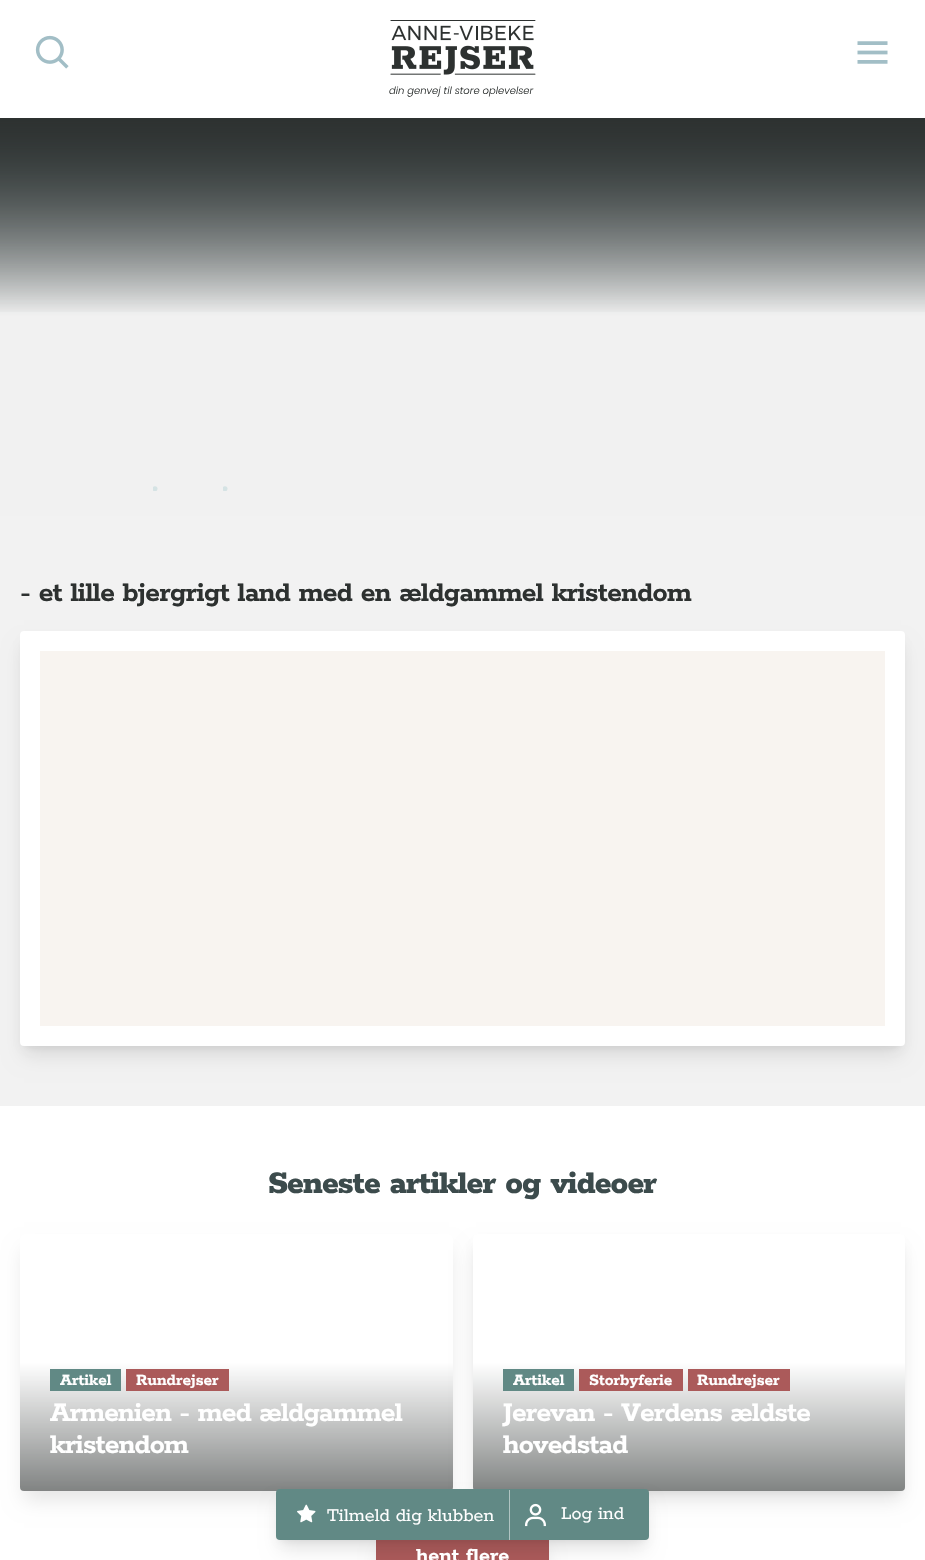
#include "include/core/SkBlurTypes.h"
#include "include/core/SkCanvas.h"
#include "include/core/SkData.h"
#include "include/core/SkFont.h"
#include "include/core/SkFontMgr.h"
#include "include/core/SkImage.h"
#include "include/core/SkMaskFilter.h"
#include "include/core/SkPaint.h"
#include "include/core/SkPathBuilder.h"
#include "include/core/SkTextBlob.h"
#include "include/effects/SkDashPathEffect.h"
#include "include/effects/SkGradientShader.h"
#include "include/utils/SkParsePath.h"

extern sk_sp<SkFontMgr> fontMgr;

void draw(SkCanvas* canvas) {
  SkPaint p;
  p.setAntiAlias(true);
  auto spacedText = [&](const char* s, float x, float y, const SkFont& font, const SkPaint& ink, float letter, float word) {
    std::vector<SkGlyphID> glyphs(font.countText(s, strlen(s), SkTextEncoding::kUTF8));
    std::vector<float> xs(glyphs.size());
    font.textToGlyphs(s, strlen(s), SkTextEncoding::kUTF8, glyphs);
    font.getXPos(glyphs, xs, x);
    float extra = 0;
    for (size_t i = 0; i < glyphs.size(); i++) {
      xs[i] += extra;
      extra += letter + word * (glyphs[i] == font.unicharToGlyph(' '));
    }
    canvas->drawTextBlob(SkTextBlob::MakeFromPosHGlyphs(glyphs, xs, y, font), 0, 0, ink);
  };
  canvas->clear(SK_ColorWHITE);
  canvas->drawImageRect(SkImages::DeferredFromEncodedData(SkData::MakeFromFileName("images/1.png")), SkRect::MakeLTRB(35, 35, 69, 69), SkSamplingOptions());
  canvas->drawImageRect(SkImages::DeferredFromEncodedData(SkData::MakeFromFileName("images/2.png")), SkRect::MakeLTRB(857, 41, 888, 64), SkSamplingOptions());
  canvas->drawImageRect(SkImages::DeferredFromEncodedData(SkData::MakeFromFileName("images/3.png")), SkRect::MakeLTRB(390, 20, 536, 75), SkSamplingOptions());
  {
    const SkColor colors[] = {SkColorSetRGB(60, 75, 76), SkColorSetRGB(241, 241, 241), SkColorSetRGB(241, 241, 241)};
    const float stops[] = {0, 0.5f, 1};
    const SkPoint ends[] = {{463, 117}, {463, 516}};
    p.setShader(SkGradientShader::MakeLinear(ends, colors, stops, 3, SkTileMode::kClamp));
    p.setAlpha(255);
  }
  canvas->drawRect(SkRect::MakeLTRB(0, 118, 925, 516), p);
  {
    const SkColor colors[] = {SkColorSetRGB(45, 49, 48), SkColorSetARGB(0, 45, 49, 48), SkColorSetARGB(0, 0, 0, 0)};
    const float stops[] = {0, 0.5f, 1};
    const SkPoint ends[] = {{463, 117}, {463, 516}};
    p.setShader(SkGradientShader::MakeLinear(ends, colors, stops, 3, SkTileMode::kClamp));
    p.setAlpha(255);
  }
  canvas->drawRect(SkRect::MakeLTRB(0, 118, 925, 312), p);
  canvas->save();
  canvas->clipRect(SkRect::MakeLTRB(153, 486, 158, 491));
  p.setShader(nullptr);
  p.setColor(SkColorSetRGB(213, 227, 228));
  canvas->drawCircle(155, 488.8f, 2.5f, p);
  canvas->restore();
  canvas->save();
  canvas->clipRect(SkRect::MakeLTRB(223, 486, 228, 491));
  canvas->drawCircle(225, 488.8f, 2.5f, p);
  canvas->restore();
  p.setColor(SkColorSetRGB(242, 242, 242));
  canvas->drawRect(SkRect::MakeLTRB(0, 516, 925, 1106), p);
  p.setColor(SkColorSetARGB(26, 0, 0, 0));
  p.setMaskFilter(SkMaskFilter::MakeBlur(kNormal_SkBlurStyle, 4));
  canvas->drawRect(SkRect::MakeLTRB(25, 641, 900, 1046), p);
  p.setMaskFilter(nullptr);
  p.setMaskFilter(SkMaskFilter::MakeBlur(kNormal_SkBlurStyle, 9.5f));
  canvas->drawRect(SkRect::MakeLTRB(24, 648, 901, 1055), p);
  p.setMaskFilter(nullptr);
  p.setColor(SK_ColorWHITE);
  canvas->drawRoundRect(SkRect::MakeLTRB(20, 631, 905, 1046), 4, 4, p);
  p.setColor(SkColorSetRGB(248, 244, 240));
  canvas->drawRect(SkRect::MakeLTRB(40, 651, 885, 1026), p);
  canvas->save();
  canvas->clipPath(SkPathBuilder(SkPathFillType::kEvenOdd).moveTo(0, 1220).lineTo(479, 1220).lineTo(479, 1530).lineTo(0, 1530).close().moveTo(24, 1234).lineTo(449, 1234).cubicTo(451, 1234, 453, 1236, 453, 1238).lineTo(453, 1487).cubicTo(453, 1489, 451, 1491, 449, 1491).lineTo(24, 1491).cubicTo(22, 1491, 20, 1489, 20, 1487).lineTo(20, 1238).cubicTo(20, 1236, 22, 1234, 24, 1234).close().detach(), true);
  p.setColor(SkColorSetARGB(26, 0, 0, 0));
  p.setMaskFilter(SkMaskFilter::MakeBlur(kNormal_SkBlurStyle, 9.5f));
  canvas->drawRect(SkRect::MakeLTRB(24, 1250, 449, 1500), p);
  p.setMaskFilter(nullptr);
  canvas->restore();
  {
    const SkColor colors[] = {SkColorSetARGB(153, 45, 49, 48), SkColorSetARGB(0, 45, 49, 48), SkColorSetARGB(0, 0, 0, 0)};
    const float stops[] = {0, 0.5f, 1};
    const SkPoint ends[] = {{236, 1491}, {236, 1234}};
    p.setShader(SkGradientShader::MakeLinear(ends, colors, stops, 3, SkTileMode::kClamp));
    p.setAlpha(255);
  }
  canvas->drawRoundRect(SkRect::MakeLTRB(20, 1234, 453, 1491), 4, 4, p);
  p.setShader(nullptr);
  p.setColor(SkColorSetRGB(97, 137, 133));
  canvas->drawRect(SkRect::MakeLTRB(50, 1369, 121, 1391), p);
  p.setColor(SkColorSetRGB(171, 90, 90));
  canvas->drawRect(SkRect::MakeLTRB(126, 1369, 229, 1391), p);
  p.setColor(SkColorSetARGB(26, 0, 0, 0));
  p.setMaskFilter(SkMaskFilter::MakeBlur(kNormal_SkBlurStyle, 4));
  canvas->drawRect(SkRect::MakeLTRB(478, 1244, 900, 1491), p);
  p.setMaskFilter(nullptr);
  p.setMaskFilter(SkMaskFilter::MakeBlur(kNormal_SkBlurStyle, 9.5f));
  canvas->drawRect(SkRect::MakeLTRB(476, 1250, 901, 1500), p);
  p.setMaskFilter(nullptr);
  {
    const SkColor colors[] = {SkColorSetRGB(129, 132, 131), SK_ColorWHITE, SK_ColorWHITE};
    const float stops[] = {0, 0.5f, 1};
    const SkPoint ends[] = {{689, 1491}, {689, 1234}};
    p.setShader(SkGradientShader::MakeLinear(ends, colors, stops, 3, SkTileMode::kClamp));
    p.setAlpha(255);
  }
  canvas->drawRoundRect(SkRect::MakeLTRB(473, 1234, 905, 1491), 4, 4, p);
  p.setShader(nullptr);
  p.setColor(SkColorSetRGB(97, 137, 133));
  canvas->drawRect(SkRect::MakeLTRB(503, 1369, 574, 1391), p);
  p.setColor(SkColorSetRGB(171, 90, 90));
  canvas->drawRect(SkRect::MakeLTRB(579, 1369, 683, 1391), p);
  canvas->drawRect(SkRect::MakeLTRB(688, 1369, 790, 1391), p);
  p.setColor(SkColorSetARGB(26, 0, 0, 0));
  p.setMaskFilter(SkMaskFilter::MakeBlur(kNormal_SkBlurStyle, 9.5f));
  canvas->drawRect(SkRect::MakeLTRB(380, 1548, 545, 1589), p);
  p.setMaskFilter(nullptr);
  p.setColor(SkColorSetRGB(171, 90, 90));
  canvas->drawRect(SkRect::MakeLTRB(376, 1540, 549, 1560), p);
  p.setColor(SkColorSetARGB(26, 0, 0, 0));
  p.setMaskFilter(SkMaskFilter::MakeBlur(kNormal_SkBlurStyle, 4));
  canvas->drawRect(SkRect::MakeLTRB(281, 1499, 644, 1540), p);
  p.setMaskFilter(nullptr);
  p.setMaskFilter(SkMaskFilter::MakeBlur(kNormal_SkBlurStyle, 9.5f));
  canvas->drawRect(SkRect::MakeLTRB(280, 1505, 645, 1549), p);
  p.setMaskFilter(nullptr);
  p.setColor(SkColorSetRGB(97, 137, 133));
  canvas->drawRoundRect(SkRect::MakeLTRB(276, 1489, 649, 1540), 4, 4, p);
  canvas->drawImageRect(SkImages::DeferredFromEncodedData(SkData::MakeFromFileName("images/4.png")), SkRect::MakeLTRB(297, 1504, 316, 1523), SkSamplingOptions());
  p.setColor(SkColorSetRGB(176, 196, 194));
  canvas->drawRect(SkRect::MakeLTRB(509, 1490, 510, 1540), p);
  canvas->drawImageRect(SkImages::DeferredFromEncodedData(SkData::MakeFromFileName("images/5.png")), SkRect::MakeLTRB(525, 1503, 546, 1527), SkSamplingOptions());
  SkFont font1(fontMgr->matchFamilyStyle("Poppins", SkFontStyle(300, SkFontStyle::kNormal_Width, SkFontStyle::kItalic_Slant)), 10);
  font1.setSubpixel(true);
  p.setColor(SkColorSetRGB(45, 49, 48));
  canvas->drawString("din genvej til store oplevelser", 389, 94, font1, p);
  SkFont font2(fontMgr->matchFamilyStyle("Rokkitt", SkFontStyle::Bold()), 30);
  font2.setSubpixel(true);
  spacedText("- et lille bjergrigt land med en ældgammel kristendom", 20, 601, font2, p, -0.6f, 0);
  SkFont font3(fontMgr->matchFamilyStyle("Rokkitt", SkFontStyle(800, SkFontStyle::kNormal_Width, SkFontStyle::kUpright_Slant)), 35);
  font3.setSubpixel(true);
  p.setColor(SkColorSetRGB(60, 75, 76));
  spacedText("Seneste artikler og videoer", 268, 1193, font3, p, -0.9f, 0);
  SkFont font4(fontMgr->matchFamilyStyle("Rokkitt", SkFontStyle::Bold()), 17.5f);
  font4.setSubpixel(true);
  p.setColor(SK_ColorWHITE);
  canvas->drawString("Artikel", 60, 1385, font4, p);
  canvas->drawString("Rundrejser", 136, 1385, font4, p);
  spacedText("Armenien - med ældgammel", 50, 1421, font2, p, -0.75f, 0);
  spacedText("kristendom", 50, 1453, font2, p, -0.75f, 0);
  canvas->drawString("Artikel", 513, 1385, font4, p);
  canvas->drawString("Storbyferie", 589, 1385, font4, p);
  canvas->drawString("Rundrejser", 697, 1385, font4, p);
  spacedText("Jerevan - Verdens ældste", 503, 1421, font2, p, -0.75f, 0);
  spacedText("hovedstad", 503, 1453, font2, p, -0.75f, 0);
  SkFont font5(fontMgr->matchFamilyStyle("Rokkitt", SkFontStyle::Bold()), 22.5f);
  font5.setSubpixel(true);
  canvas->drawString("hent flere", 416, 1562, font5, p);
  SkFont font6(fontMgr->matchFamilyStyle("Rokkitt", SkFontStyle::Normal()), 20);
  font6.setSubpixel(true);
  canvas->drawString("Tilmeld dig klubben", 327, 1521, font6, p);
  canvas->drawString("Log ind", 561, 1519, font6, p);
}
